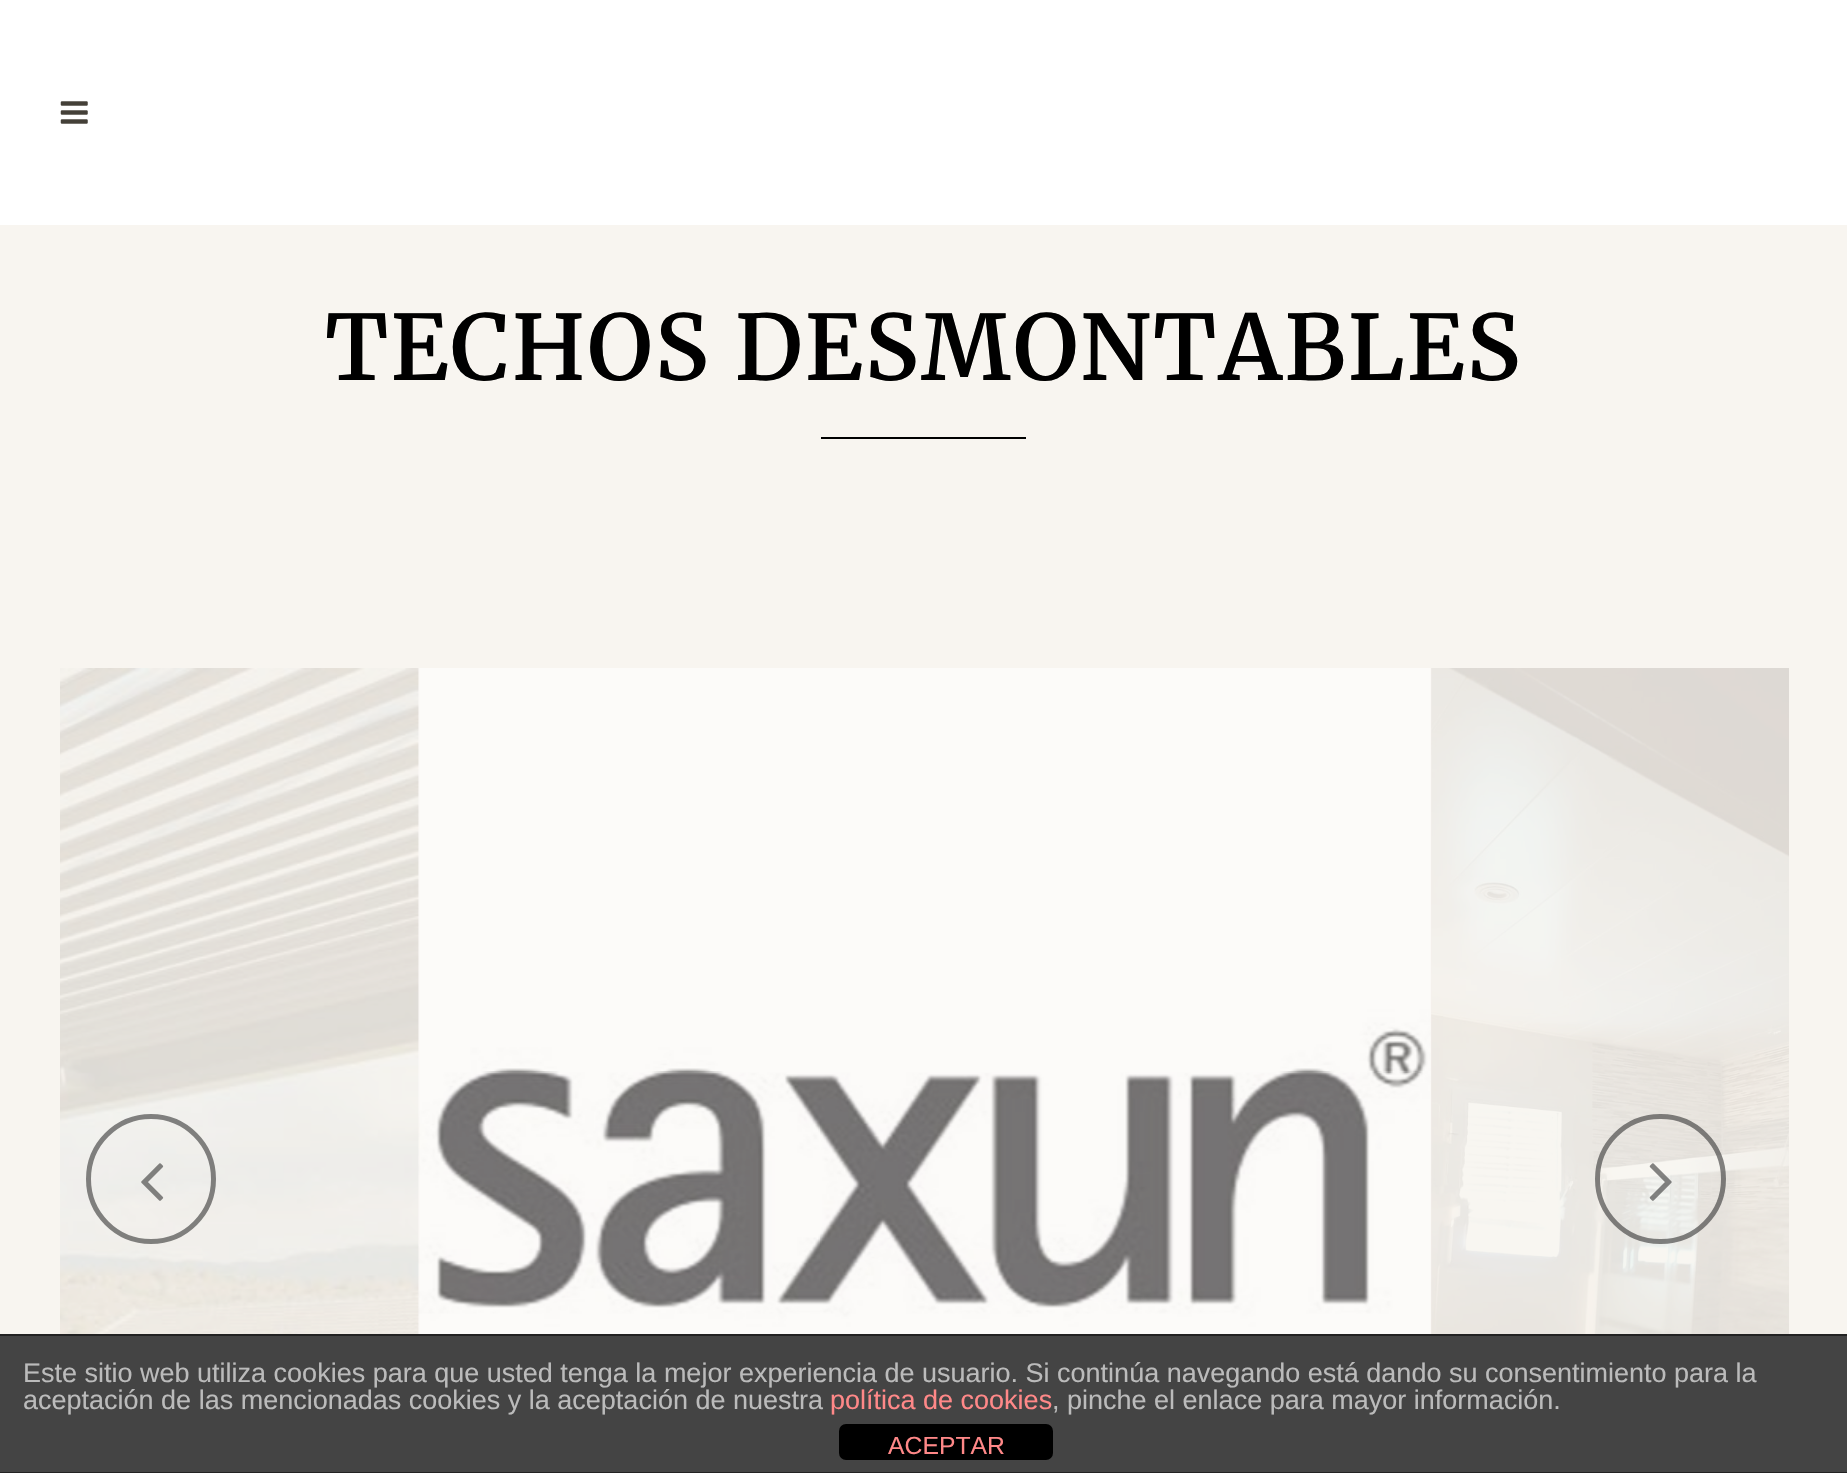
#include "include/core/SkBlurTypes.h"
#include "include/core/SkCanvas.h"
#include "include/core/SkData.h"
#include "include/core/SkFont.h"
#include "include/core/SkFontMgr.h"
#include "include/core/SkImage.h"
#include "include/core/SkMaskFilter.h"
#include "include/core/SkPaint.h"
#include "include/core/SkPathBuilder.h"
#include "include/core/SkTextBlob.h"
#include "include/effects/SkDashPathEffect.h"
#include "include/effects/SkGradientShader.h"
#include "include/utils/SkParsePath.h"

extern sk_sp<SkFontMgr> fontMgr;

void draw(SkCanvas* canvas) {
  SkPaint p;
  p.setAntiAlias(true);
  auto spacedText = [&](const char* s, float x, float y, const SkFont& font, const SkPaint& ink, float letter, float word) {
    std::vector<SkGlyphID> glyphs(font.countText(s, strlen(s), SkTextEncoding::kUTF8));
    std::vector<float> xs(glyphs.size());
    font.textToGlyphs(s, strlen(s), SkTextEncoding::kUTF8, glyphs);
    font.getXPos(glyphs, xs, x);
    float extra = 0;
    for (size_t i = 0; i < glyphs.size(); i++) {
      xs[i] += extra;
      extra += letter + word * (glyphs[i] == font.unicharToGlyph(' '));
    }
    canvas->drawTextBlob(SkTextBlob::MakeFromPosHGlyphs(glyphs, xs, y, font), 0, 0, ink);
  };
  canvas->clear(SkColorSetRGB(248, 245, 240));
  p.setColor(SK_ColorWHITE);
  canvas->drawRect(SkRect::MakeLTRB(0, 0, 1847, 225), p);
  canvas->drawImageRect(SkImages::DeferredFromEncodedData(SkData::MakeFromFileName("images/1.png")), SkRect::MakeLTRB(60, 101, 88, 124), SkSamplingOptions());
  p.setColor(SK_ColorBLACK);
  canvas->drawRect(SkRect::MakeLTRB(821, 437, 1026, 439), p);
  canvas->drawImageRect(SkImages::DeferredFromEncodedData(SkData::MakeFromFileName("images/2.png")), SkRect::MakeLTRB(60, 668, 419, 1334), SkSamplingOptions());
  canvas->drawImageRect(SkImages::DeferredFromEncodedData(SkData::MakeFromFileName("images/3.png")), SkRect::MakeLTRB(418, 668, 1431, 1334), SkSamplingOptions());
  canvas->drawImageRect(SkImages::DeferredFromEncodedData(SkData::MakeFromFileName("images/4.png")), SkRect::MakeLTRB(1431, 668, 1789, 1334), SkSamplingOptions());
  p.setStyle(SkPaint::kStroke_Style);
  p.setStrokeWidth(5);
  p.setColor(SkColorSetARGB(150, 48, 48, 48));
  canvas->drawCircle(151, 1179, 62.5f, p);
  canvas->drawImageRect(SkImages::DeferredFromEncodedData(SkData::MakeFromFileName("images/5.png")), SkRect::MakeLTRB(141, 1163, 164, 1201), SkSamplingOptions());
  canvas->drawRoundRect(SkRect::MakeLTRB(1597.5f, 1116.5f, 1723.5f, 1241.5f), 62.5f, 62.5f, p);
  canvas->drawImageRect(SkImages::DeferredFromEncodedData(SkData::MakeFromFileName("images/6.png")), SkRect::MakeLTRB(1649, 1163, 1672, 1201), SkSamplingOptions());
  p.setStyle(SkPaint::kFill_Style);
  p.setColor(SkColorSetRGB(68, 68, 68));
  canvas->drawRect(SkRect::MakeLTRB(0, 1336, 1847, 1472), p);
  p.setColor(SkColorSetRGB(34, 34, 34));
  canvas->drawRect(SkRect::MakeLTRB(0, 1334, 1847, 1336), p);
  canvas->drawRect(SkRect::MakeLTRB(0, 1472, 1847, 1473), p);
  p.setColor(SK_ColorBLACK);
  canvas->drawRoundRect(SkRect::MakeLTRB(839, 1424, 1053, 1460), 7, 7, p);
  SkFont font1(fontMgr->matchFamilyStyle("Merriweather", SkFontStyle(600, SkFontStyle::kNormal_Width, SkFontStyle::kUpright_Slant)), 90);
  font1.setSubpixel(true);
  spacedText("TECHOS DESMONTABLES", 325, 380, font1, p, 2.25f, 0);
  SkFont font2(fontMgr->matchFamilyStyle("Liberation Sans", SkFontStyle::Normal()), 27);
  font2.setSubpixel(true);
  p.setColor(SkColorSetRGB(187, 187, 187));
  canvas->drawString("Este sitio web utiliza cookies para que usted tenga la mejor experiencia de usuario. Si continúa navegando está dando su consentimiento para la", 23, 1382, font2, p);
  canvas->drawString("aceptación de las mencionadas cookies y la aceptación de nuestra", 23, 1409, font2, p);
  p.setColor(SkColorSetRGB(255, 136, 136));
  canvas->drawString("política de cookies", 830, 1409, font2, p);
  p.setColor(SkColorSetRGB(187, 187, 187));
  canvas->drawString(", pinche el enlace para mayor información.", 1052, 1409, font2, p);
  SkFont font3(fontMgr->matchFamilyStyle("Liberation Sans", SkFontStyle::Normal()), 24.75f);
  font3.setSubpixel(true);
  p.setColor(SkColorSetRGB(255, 136, 136));
  canvas->drawString("ACEPTAR", 888, 1454, font3, p);
}
